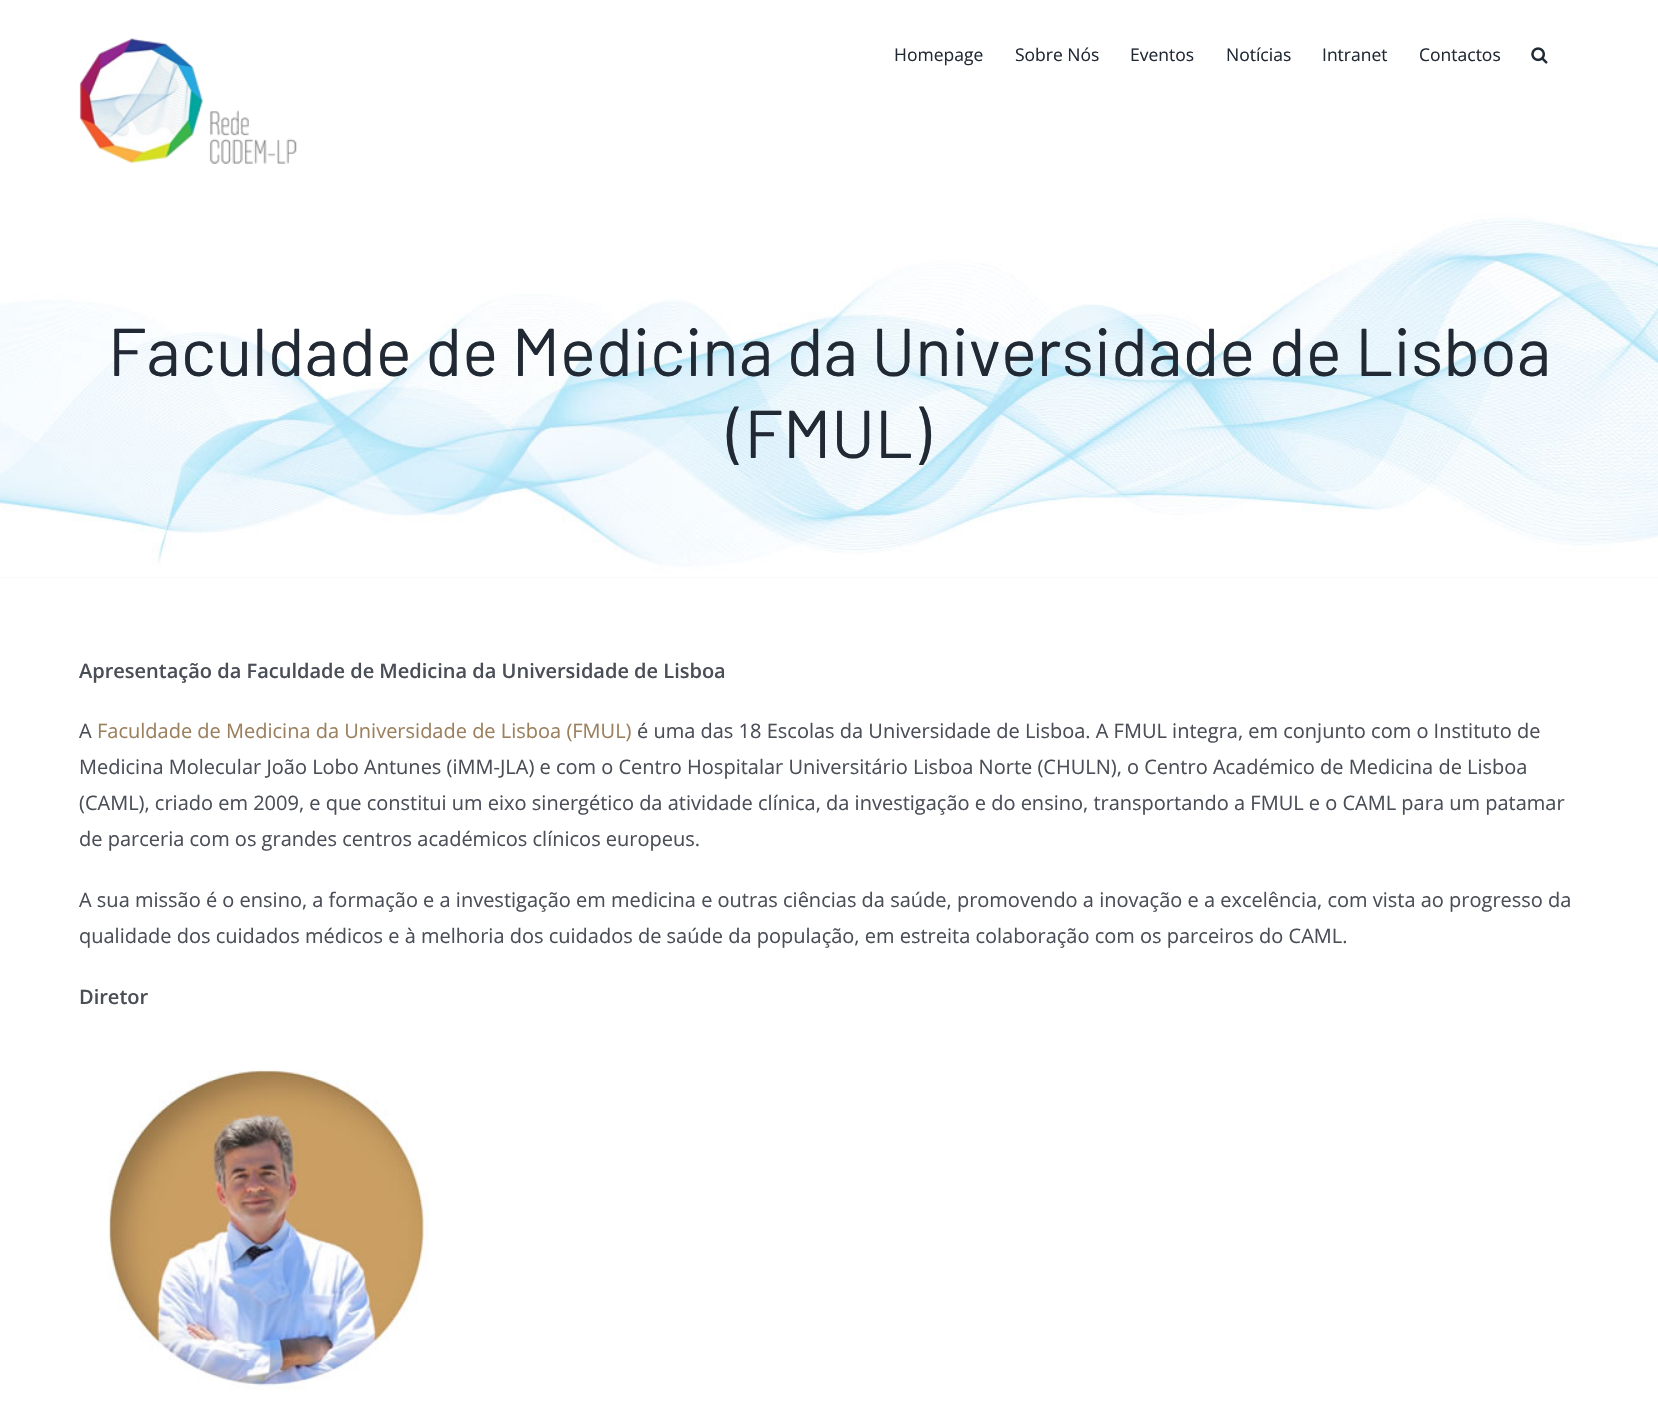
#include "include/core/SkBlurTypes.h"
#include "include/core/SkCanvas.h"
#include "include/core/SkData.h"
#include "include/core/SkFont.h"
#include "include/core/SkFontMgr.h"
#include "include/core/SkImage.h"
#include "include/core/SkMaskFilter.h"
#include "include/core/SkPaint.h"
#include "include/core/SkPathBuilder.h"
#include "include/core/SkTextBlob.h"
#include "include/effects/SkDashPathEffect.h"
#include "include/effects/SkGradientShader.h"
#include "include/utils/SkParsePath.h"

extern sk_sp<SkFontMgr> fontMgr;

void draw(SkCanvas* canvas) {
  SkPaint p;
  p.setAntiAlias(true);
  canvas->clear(SK_ColorWHITE);
  canvas->drawImageRect(SkImages::DeferredFromEncodedData(SkData::MakeFromFileName("images/1.png")), SkRect::MakeLTRB(79, 38, 297, 164), SkSamplingOptions());
  canvas->drawImageRect(SkImages::DeferredFromEncodedData(SkData::MakeFromFileName("images/2.png")), SkRect::MakeLTRB(1531, 47, 1548, 64), SkSamplingOptions());
  p.setColor(SkColorSetRGB(242, 243, 245));
  canvas->drawRect(SkRect::MakeLTRB(0, 577, 1658, 578), p);
  canvas->drawImageRect(SkImages::DeferredFromEncodedData(SkData::MakeFromFileName("images/3.png")), SkRect::MakeLTRB(0, 203, 1658, 578), SkSamplingOptions());
  canvas->drawImageRect(SkImages::DeferredFromEncodedData(SkData::MakeFromFileName("images/4.png")), SkRect::MakeLTRB(108, 1070, 429, 1390), SkSamplingOptions());
  SkFont font1(fontMgr->matchFamilyStyle("Open Sans", SkFontStyle::Normal()), 17.5f);
  font1.setSubpixel(true);
  p.setColor(SkColorSetRGB(33, 41, 52));
  canvas->drawString("Homepage", 894, 61, font1, p);
  canvas->drawString("Sobre Nós", 1015, 61, font1, p);
  canvas->drawString("Eventos", 1130, 61, font1, p);
  canvas->drawString("Notícias", 1226, 61, font1, p);
  canvas->drawString("Intranet", 1322, 61, font1, p);
  canvas->drawString("Contactos", 1419, 61, font1, p);
  SkFont font2(fontMgr->matchFamilyStyle("Barlow", SkFontStyle::Normal()), 67.5f);
  font2.setSubpixel(true);
  canvas->drawString("Faculdade de Medicina da Universidade de Lisboa", 108, 376, font2, p);
  canvas->drawString("(FMUL)", 727, 458, font2, p);
  SkFont font3(fontMgr->matchFamilyStyle("Open Sans", SkFontStyle(600, SkFontStyle::kNormal_Width, SkFontStyle::kUpright_Slant)), 20);
  font3.setSubpixel(true);
  p.setColor(SkColorSetRGB(74, 78, 87));
  canvas->drawString("Apresentação da Faculdade de Medicina da Universidade de Lisboa", 79, 678, font3, p);
  SkFont font4(fontMgr->matchFamilyStyle("Open Sans", SkFontStyle::Normal()), 20);
  font4.setSubpixel(true);
  canvas->drawString("A", 79, 738, font4, p);
  p.setColor(SkColorSetRGB(155, 128, 94));
  canvas->drawString("Faculdade de Medicina da Universidade de Lisboa (FMUL)", 97, 738, font4, p);
  p.setColor(SkColorSetRGB(74, 78, 87));
  canvas->drawString("é uma das 18 Escolas da Universidade de Lisboa. A FMUL integra, em conjunto com o Instituto de", 637, 738, font4, p);
  canvas->drawString("Medicina Molecular João Lobo Antunes (iMM-JLA) e com o Centro Hospitalar Universitário Lisboa Norte (CHULN), o Centro Académico de Medicina de Lisboa", 79, 774, font4, p);
  canvas->drawString("(CAML), criado em 2009, e que constitui um eixo sinergético da atividade clínica, da investigação e do ensino, transportando a FMUL e o CAML para um patamar", 79, 810, font4, p);
  canvas->drawString("de parceria com os grandes centros académicos clínicos europeus.", 79, 846, font4, p);
  canvas->drawString("A sua missão é o ensino, a formação e a investigação em medicina e outras ciências da saúde, promovendo a inovação e a excelência, com vista ao progresso da", 79, 907, font4, p);
  canvas->drawString("qualidade dos cuidados médicos e à melhoria dos cuidados de saúde da população, em estreita colaboração com os parceiros do CAML.", 79, 943, font4, p);
  canvas->drawString("Diretor", 79, 1004, font3, p);
}
